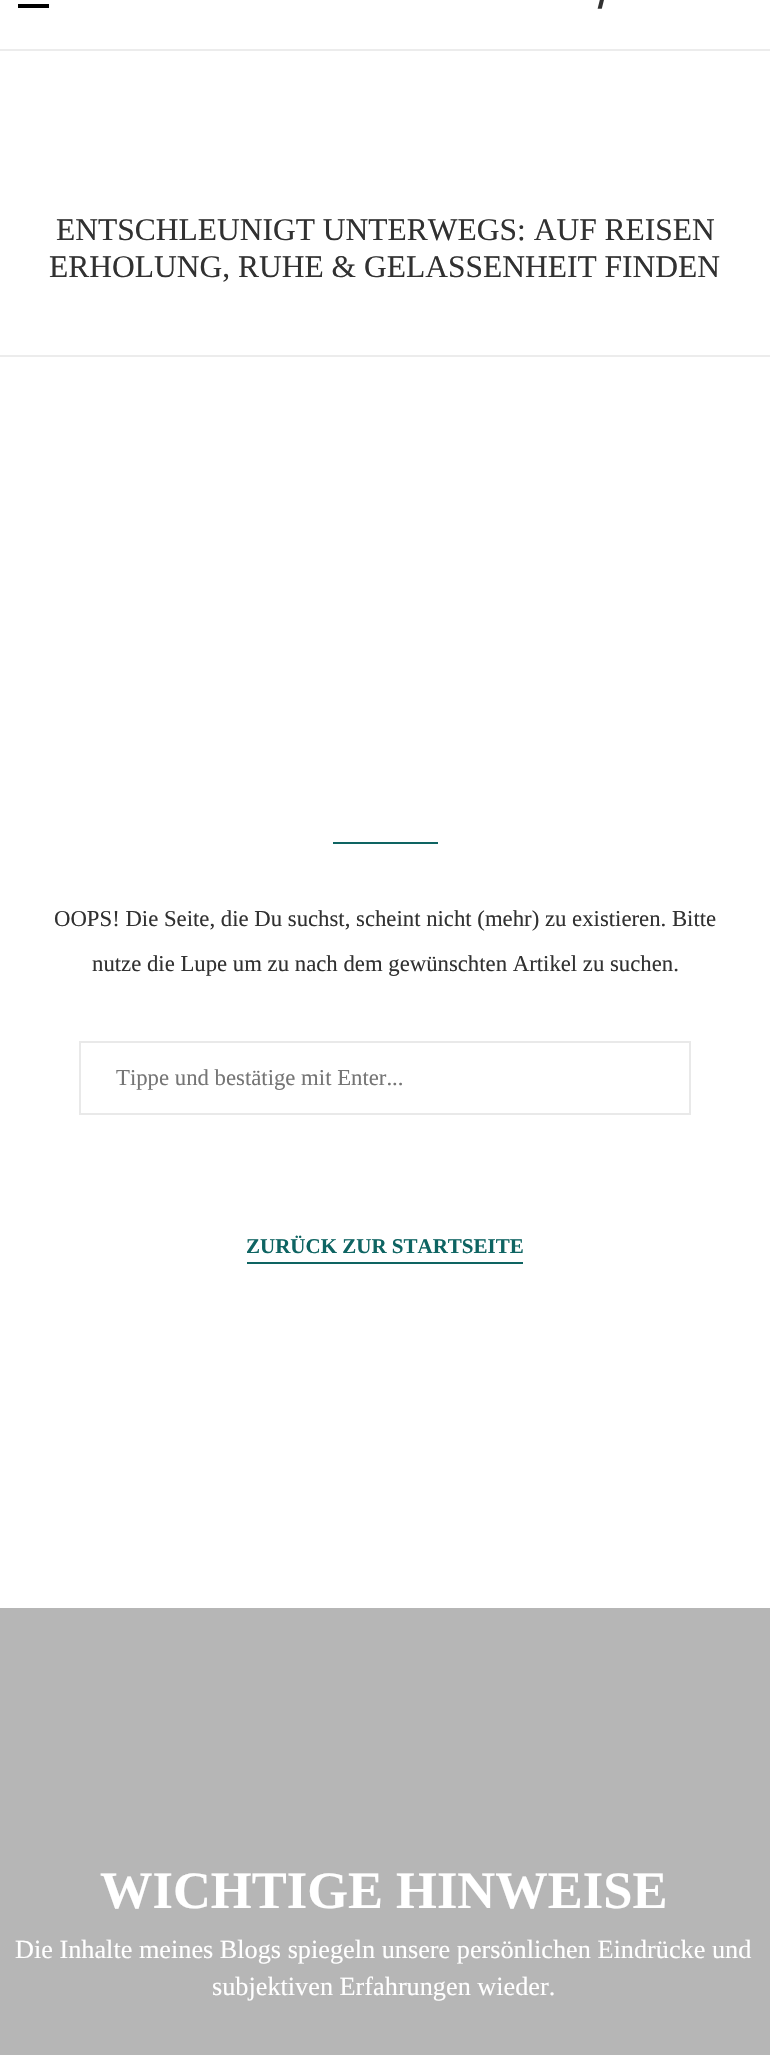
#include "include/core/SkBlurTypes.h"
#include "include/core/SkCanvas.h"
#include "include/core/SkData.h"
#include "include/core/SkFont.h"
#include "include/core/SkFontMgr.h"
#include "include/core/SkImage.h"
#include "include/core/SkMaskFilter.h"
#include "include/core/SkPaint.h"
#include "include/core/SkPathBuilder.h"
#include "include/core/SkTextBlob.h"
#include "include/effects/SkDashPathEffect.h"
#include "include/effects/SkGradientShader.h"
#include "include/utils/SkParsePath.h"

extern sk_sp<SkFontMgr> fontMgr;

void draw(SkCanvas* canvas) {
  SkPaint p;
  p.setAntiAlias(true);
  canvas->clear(SK_ColorWHITE);
  p.setColor(SkColorSetRGB(236, 236, 236));
  canvas->drawRect(SkRect::MakeLTRB(0, 49, 770, 51), p);
  p.setColor(SK_ColorBLACK);
  canvas->drawRect(SkRect::MakeLTRB(18, 4, 49, 8), p);
  canvas->drawImageRect(SkImages::DeferredFromEncodedData(SkData::MakeFromFileName("images/1.png")), SkRect::MakeLTRB(597, 0, 604, 9), SkSamplingOptions());
  p.setColor(SkColorSetRGB(236, 236, 236));
  canvas->drawRect(SkRect::MakeLTRB(0, 355, 770, 357), p);
  p.setColor(SkColorSetRGB(14, 100, 98));
  canvas->drawRect(SkRect::MakeLTRB(333, 842, 438, 844), p);
  p.setStyle(SkPaint::kStroke_Style);
  p.setStrokeWidth(2);
  p.setColor(SkColorSetRGB(233, 233, 233));
  canvas->drawRect(SkRect::MakeLTRB(80, 1042, 690, 1114), p);
  p.setStyle(SkPaint::kFill_Style);
  p.setColor(SkColorSetRGB(14, 100, 98));
  canvas->drawRect(SkRect::MakeLTRB(247, 1262, 523, 1264), p);
  p.setColor(SkColorSetRGB(182, 182, 182));
  canvas->drawRect(SkRect::MakeLTRB(0, 1608, 770, 2055), p);
  SkFont font1(fontMgr->matchFamilyStyle("Liberation Serif", SkFontStyle::Normal()), 31.5f);
  font1.setSubpixel(true);
  p.setColor(SkColorSetRGB(49, 49, 49));
  canvas->drawString("ENTSCHLEUNIGT UNTERWEGS: AUF REISEN", 56, 240, font1, p);
  canvas->drawString("ERHOLUNG, RUHE & GELASSENHEIT FINDEN", 49, 277, font1, p);
  SkFont font2(fontMgr->matchFamilyStyle("Liberation Serif", SkFontStyle::Normal()), 22.75f);
  font2.setSubpixel(true);
  canvas->drawString("OOPS! Die Seite, die Du suchst, scheint nicht (mehr) zu existieren. Bitte", 54, 926, font2, p);
  canvas->drawString("nutze die Lupe um zu nach dem gewünschten Artikel zu suchen.", 92, 971, font2, p);
  canvas->save();
  canvas->clipRect(SkRect::MakeLTRB(116, 1064, 620, 1092));
  p.setColor(SkColorSetRGB(117, 117, 117));
  canvas->drawString("Tippe und bestätige mit Enter...", 116, 1085, font2, p);
  canvas->restore();
  SkFont font3(fontMgr->matchFamilyStyle("Liberation Serif", SkFontStyle::Bold()), 21);
  font3.setSubpixel(true);
  p.setColor(SkColorSetRGB(14, 100, 98));
  canvas->drawString("ZURÜCK ZUR STARTSEITE", 246, 1253, font3, p);
  SkFont font4(fontMgr->matchFamilyStyle("Liberation Serif", SkFontStyle::Bold()), 52.5f);
  font4.setSubpixel(true);
  p.setColor(SK_ColorWHITE);
  canvas->drawString("WICHTIGE HINWEISE", 100, 1908, font4, p);
  SkFont font5(fontMgr->matchFamilyStyle("Liberation Serif", SkFontStyle::Normal()), 26.25f);
  font5.setSubpixel(true);
  canvas->drawString("Die Inhalte meines Blogs spiegeln unsere persönlichen Eindrücke und", 15, 1958, font5, p);
  canvas->drawString("subjektiven Erfahrungen wieder.", 212, 1995, font5, p);
}
